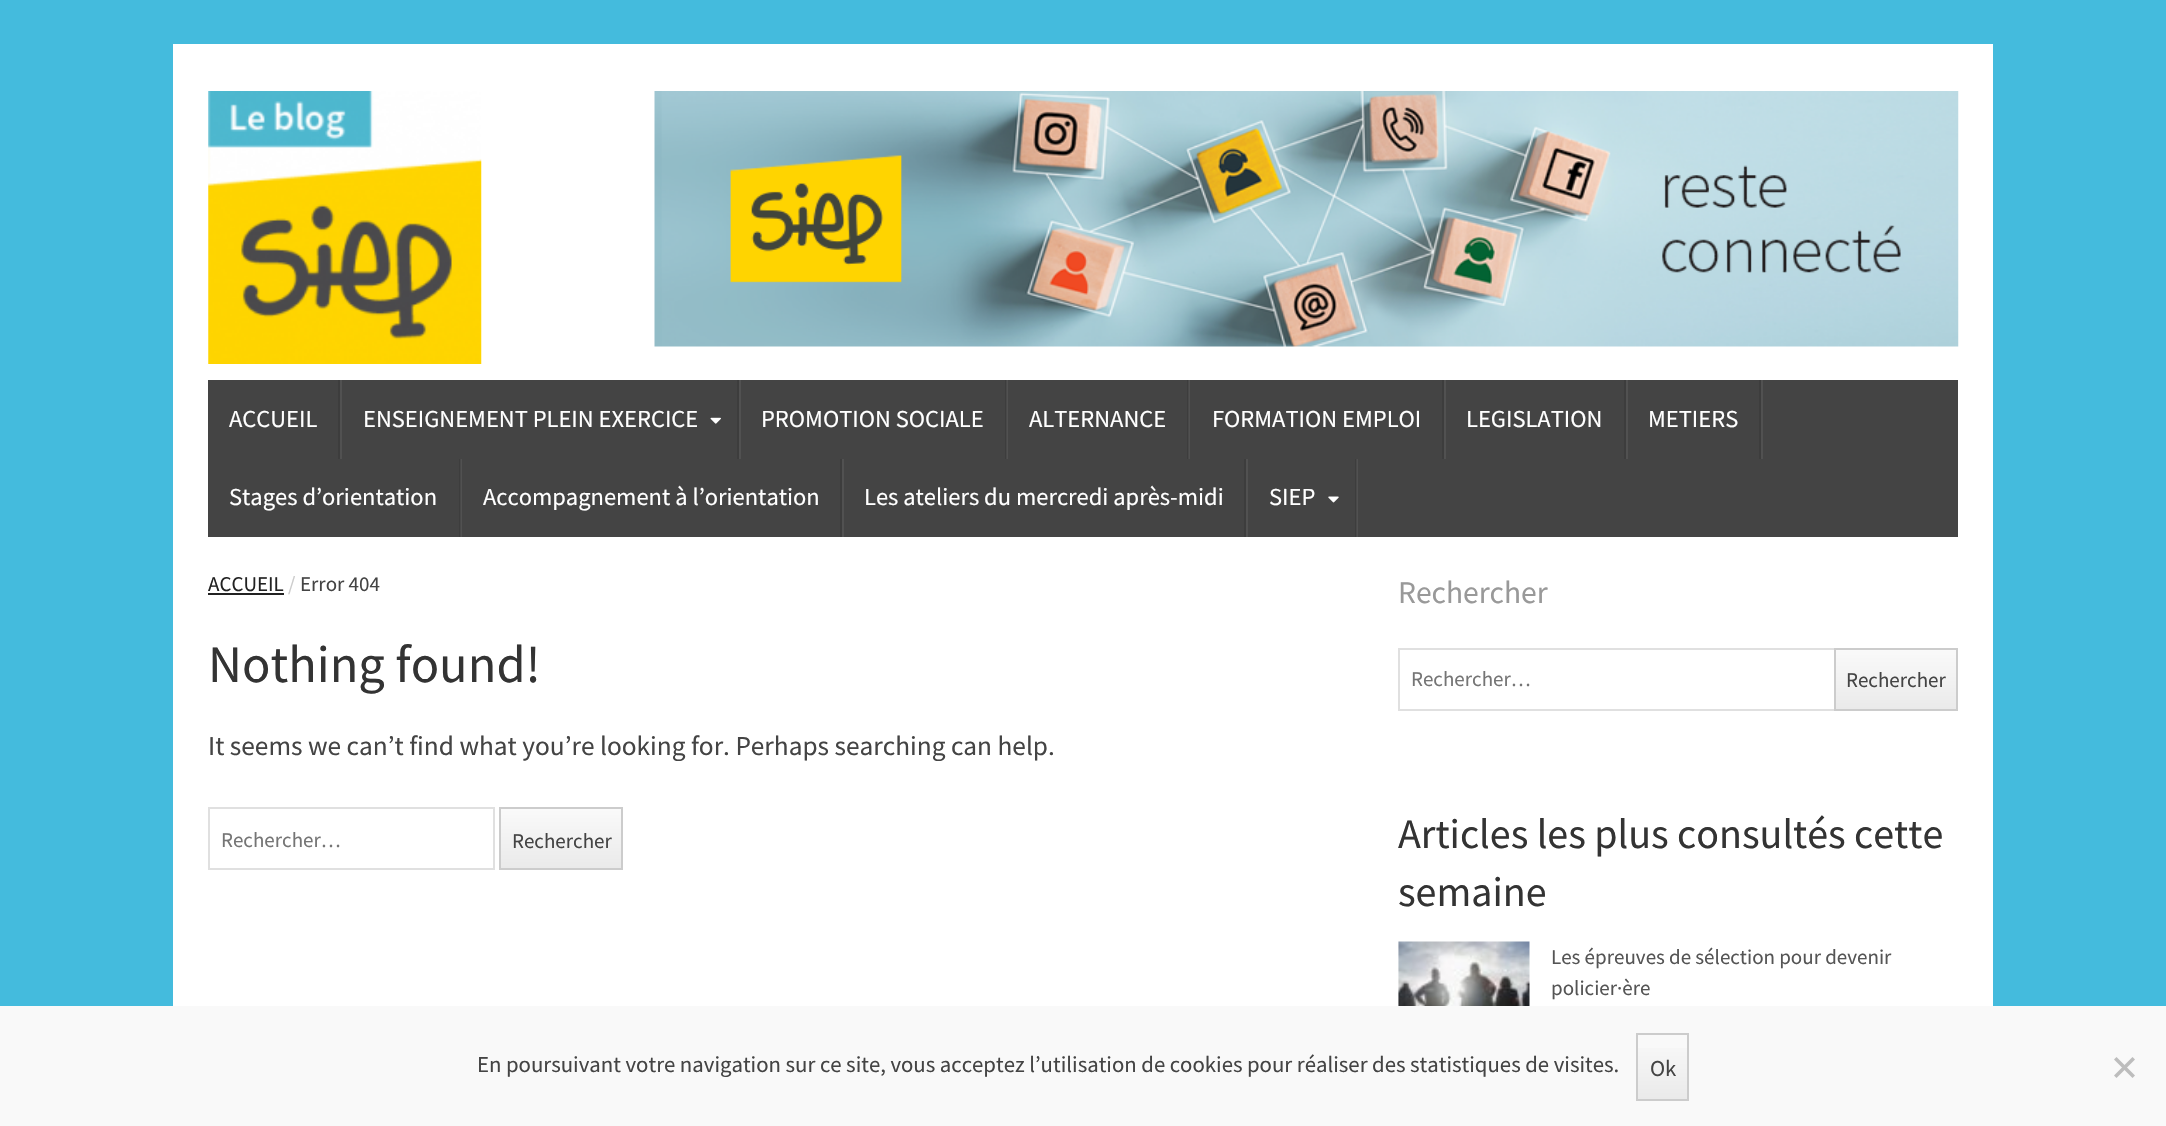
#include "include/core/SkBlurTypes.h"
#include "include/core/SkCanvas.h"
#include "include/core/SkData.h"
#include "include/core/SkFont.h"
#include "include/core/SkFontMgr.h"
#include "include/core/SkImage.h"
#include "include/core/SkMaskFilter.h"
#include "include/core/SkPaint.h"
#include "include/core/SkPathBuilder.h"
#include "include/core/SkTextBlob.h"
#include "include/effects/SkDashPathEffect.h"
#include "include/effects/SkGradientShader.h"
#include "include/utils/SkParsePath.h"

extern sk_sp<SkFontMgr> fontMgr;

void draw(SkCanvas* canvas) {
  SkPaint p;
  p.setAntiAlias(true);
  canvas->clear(SkColorSetRGB(68, 187, 221));
  p.setColor(SK_ColorWHITE);
  canvas->drawRect(SkRect::MakeLTRB(173, 44, 1993, 1006), p);
  canvas->drawImageRect(SkImages::DeferredFromEncodedData(SkData::MakeFromFileName("images/1.png")), SkRect::MakeLTRB(208, 91, 482, 364), SkSamplingOptions());
  canvas->drawImageRect(SkImages::DeferredFromEncodedData(SkData::MakeFromFileName("images/2.png")), SkRect::MakeLTRB(654, 91, 1959, 347), SkSamplingOptions());
  p.setColor(SkColorSetRGB(68, 68, 68));
  canvas->drawRect(SkRect::MakeLTRB(208, 380, 1958, 537), p);
  p.setColor(SkColorSetRGB(61, 61, 61));
  canvas->drawRect(SkRect::MakeLTRB(1355, 459, 1356, 537), p);
  canvas->drawRect(SkRect::MakeLTRB(459, 459, 460, 537), p);
  canvas->drawRect(SkRect::MakeLTRB(1187, 380, 1188, 459), p);
  canvas->drawRect(SkRect::MakeLTRB(1005, 380, 1006, 459), p);
  p.setColor(SkColorSetRGB(81, 81, 81));
  canvas->drawRect(SkRect::MakeLTRB(340, 380, 342, 459), p);
  p.setColor(SkColorSetRGB(61, 61, 61));
  canvas->drawRect(SkRect::MakeLTRB(338, 380, 340, 459), p);
  p.setColor(SkColorSetRGB(81, 81, 81));
  canvas->drawRect(SkRect::MakeLTRB(739, 380, 741, 459), p);
  p.setColor(SkColorSetRGB(61, 61, 61));
  canvas->drawRect(SkRect::MakeLTRB(737, 380, 739, 459), p);
  canvas->drawImageRect(SkImages::DeferredFromEncodedData(SkData::MakeFromFileName("images/3.png")), SkRect::MakeLTRB(710, 417, 721, 424), SkSamplingOptions());
  p.setColor(SkColorSetRGB(81, 81, 81));
  canvas->drawRect(SkRect::MakeLTRB(1007, 380, 1008, 459), p);
  p.setColor(SkColorSetRGB(73, 73, 73));
  canvas->drawRect(SkRect::MakeLTRB(1006, 380, 1007, 459), p);
  p.setColor(SkColorSetRGB(81, 81, 81));
  canvas->drawRect(SkRect::MakeLTRB(1189, 380, 1190, 459), p);
  p.setColor(SkColorSetRGB(73, 73, 73));
  canvas->drawRect(SkRect::MakeLTRB(1188, 380, 1189, 459), p);
  p.setColor(SkColorSetRGB(81, 81, 81));
  canvas->drawRect(SkRect::MakeLTRB(1444, 380, 1446, 459), p);
  p.setColor(SkColorSetRGB(61, 61, 61));
  canvas->drawRect(SkRect::MakeLTRB(1442, 380, 1444, 459), p);
  p.setColor(SkColorSetRGB(81, 81, 81));
  canvas->drawRect(SkRect::MakeLTRB(1626, 380, 1628, 459), p);
  p.setColor(SkColorSetRGB(61, 61, 61));
  canvas->drawRect(SkRect::MakeLTRB(1624, 380, 1626, 459), p);
  p.setColor(SkColorSetRGB(81, 81, 81));
  canvas->drawRect(SkRect::MakeLTRB(1761, 380, 1763, 459), p);
  p.setColor(SkColorSetRGB(61, 61, 61));
  canvas->drawRect(SkRect::MakeLTRB(1759, 380, 1761, 459), p);
  p.setColor(SkColorSetRGB(81, 81, 81));
  canvas->drawRect(SkRect::MakeLTRB(461, 459, 462, 537), p);
  p.setColor(SkColorSetRGB(73, 73, 73));
  canvas->drawRect(SkRect::MakeLTRB(460, 459, 461, 537), p);
  p.setColor(SkColorSetRGB(81, 81, 81));
  canvas->drawRect(SkRect::MakeLTRB(842, 459, 844, 537), p);
  p.setColor(SkColorSetRGB(61, 61, 61));
  canvas->drawRect(SkRect::MakeLTRB(840, 459, 842, 537), p);
  p.setColor(SkColorSetRGB(81, 81, 81));
  canvas->drawRect(SkRect::MakeLTRB(1246, 459, 1248, 537), p);
  p.setColor(SkColorSetRGB(61, 61, 61));
  canvas->drawRect(SkRect::MakeLTRB(1244, 459, 1246, 537), p);
  p.setColor(SkColorSetRGB(81, 81, 81));
  canvas->drawRect(SkRect::MakeLTRB(1357, 459, 1358, 537), p);
  p.setColor(SkColorSetRGB(73, 73, 73));
  canvas->drawRect(SkRect::MakeLTRB(1356, 459, 1357, 537), p);
  canvas->drawImageRect(SkImages::DeferredFromEncodedData(SkData::MakeFromFileName("images/4.png")), SkRect::MakeLTRB(1328, 496, 1339, 503), SkSamplingOptions());
  p.setColor(SkColorSetRGB(34, 34, 34));
  canvas->drawRect(SkRect::MakeLTRB(208, 593, 284, 595), p);
  p.setStyle(SkPaint::kStroke_Style);
  p.setStrokeWidth(2);
  p.setColor(SkColorSetRGB(224, 224, 224));
  canvas->drawRect(SkRect::MakeLTRB(209, 808, 494, 869), p);
  p.setStyle(SkPaint::kFill_Style);
  {
    const SkColor colors[] = {SkColorSetRGB(250, 250, 250), SkColorSetRGB(234, 234, 234)};
    const float stops[] = {0, 1};
    const SkPoint ends[] = {{561, 809}, {561, 868}};
    p.setShader(SkGradientShader::MakeLinear(ends, colors, stops, 2, SkTileMode::kClamp));
    p.setAlpha(255);
  }
  canvas->drawRect(SkRect::MakeLTRB(501, 809, 621, 868), p);
  p.setStyle(SkPaint::kStroke_Style);
  p.setShader(nullptr);
  p.setColor(SkColorSetRGB(204, 204, 204));
  canvas->drawRect(SkRect::MakeLTRB(500, 808, 622, 869), p);
  p.setColor(SkColorSetRGB(224, 224, 224));
  canvas->drawRect(SkRect::MakeLTRB(1399, 649, 1957, 710), p);
  p.setStyle(SkPaint::kFill_Style);
  {
    const SkColor colors[] = {SkColorSetRGB(250, 250, 250), SkColorSetRGB(234, 234, 234)};
    const float stops[] = {0, 1};
    const SkPoint ends[] = {{1896, 649}, {1896, 709}};
    p.setShader(SkGradientShader::MakeLinear(ends, colors, stops, 2, SkTileMode::kClamp));
    p.setAlpha(255);
  }
  canvas->drawRect(SkRect::MakeLTRB(1836, 650, 1956, 709), p);
  p.setStyle(SkPaint::kStroke_Style);
  p.setShader(nullptr);
  p.setColor(SkColorSetRGB(204, 204, 204));
  canvas->drawRect(SkRect::MakeLTRB(1835, 649, 1957, 710), p);
  canvas->drawImageRect(SkImages::DeferredFromEncodedData(SkData::MakeFromFileName("images/5.png")), SkRect::MakeLTRB(1398, 941, 1530, 1006), SkSamplingOptions());
  p.setStyle(SkPaint::kFill_Style);
  p.setColor(SkColorSetRGB(249, 249, 249));
  canvas->drawRect(SkRect::MakeLTRB(0, 1006, 2166, 1126), p);
  {
    const SkColor colors[] = {SkColorSetRGB(250, 250, 250), SkColorSetRGB(234, 234, 234)};
    const float stops[] = {0, 1};
    const SkPoint ends[] = {{1663, 1034}, {1663, 1099}};
    p.setShader(SkGradientShader::MakeLinear(ends, colors, stops, 2, SkTileMode::kClamp));
    p.setAlpha(255);
  }
  canvas->drawRect(SkRect::MakeLTRB(1638, 1048, 1687, 1099), p);
  p.setStyle(SkPaint::kStroke_Style);
  p.setShader(nullptr);
  p.setColor(SkColorSetRGB(204, 204, 204));
  canvas->drawRect(SkRect::MakeLTRB(1637, 1034, 1688, 1100), p);
  p.setStyle(SkPaint::kFill_Style);
  p.setColor(SkColorSetRGB(189, 189, 189));
  canvas->drawPath(SkPathBuilder().moveTo(2132.5f, 1057).lineTo(2135, 1059.5f).lineTo(2116.5f, 1078).lineTo(2114, 1075.5f).close().detach(), p);
  canvas->drawPath(SkPathBuilder().moveTo(2114, 1059.5f).lineTo(2116.5f, 1057).lineTo(2135, 1075.5f).lineTo(2132.5f, 1078).close().detach(), p);
  SkFont font1(fontMgr->matchFamilyStyle("Source Sans Pro", SkFontStyle::Normal()), 24.5f);
  font1.setSubpixel(true);
  p.setColor(SK_ColorWHITE);
  canvas->drawString("ACCUEIL", 229, 427, font1, p);
  canvas->drawString("ENSEIGNEMENT PLEIN EXERCICE", 363, 427, font1, p);
  canvas->drawString("PROMOTION SOCIALE", 761, 427, font1, p);
  canvas->drawString("ALTERNANCE", 1029, 427, font1, p);
  canvas->drawString("FORMATION EMPLOI", 1212, 427, font1, p);
  canvas->drawString("LEGISLATION", 1466, 427, font1, p);
  canvas->drawString("METIERS", 1648, 427, font1, p);
  canvas->drawString("Stages d’orientation", 229, 505, font1, p);
  canvas->drawString("Accompagnement à l’orientation", 483, 505, font1, p);
  canvas->drawString("Les ateliers du mercredi après-midi", 864, 505, font1, p);
  canvas->drawString("SIEP", 1269, 505, font1, p);
  SkFont font2(fontMgr->matchFamilyStyle("Source Sans Pro", SkFontStyle::Normal()), 21);
  font2.setSubpixel(true);
  p.setColor(SkColorSetRGB(34, 34, 34));
  canvas->drawString("ACCUEIL", 208, 591, font2, p);
  p.setColor(SkColorSetRGB(204, 204, 204));
  canvas->drawString("/", 288, 591, font2, p);
  p.setColor(SkColorSetRGB(68, 68, 68));
  canvas->drawString("Error 404", 300, 591, font2, p);
  SkFont font3(fontMgr->matchFamilyStyle("Source Sans Pro", SkFontStyle::Normal()), 52.5f);
  font3.setSubpixel(true);
  p.setColor(SkColorSetRGB(51, 51, 51));
  canvas->drawString("Nothing found!", 208, 682, font3, p);
  SkFont font4(fontMgr->matchFamilyStyle("Source Sans Pro", SkFontStyle::Normal()), 27.3f);
  font4.setSubpixel(true);
  p.setColor(SkColorSetRGB(68, 68, 68));
  canvas->drawString("It seems we can’t find what you’re looking for. Perhaps searching can help.", 208, 755, font4, p);
  p.setColor(SkColorSetRGB(117, 117, 117));
  canvas->drawString("Rechercher…", 221, 847, font2, p);
  p.setColor(SkColorSetRGB(68, 68, 68));
  canvas->drawString("Rechercher", 512, 848, font2, p);
  SkFont font5(fontMgr->matchFamilyStyle("Source Sans Pro", SkFontStyle::Normal()), 31.5f);
  font5.setSubpixel(true);
  p.setColor(SkColorSetRGB(153, 153, 153));
  canvas->drawString("Rechercher", 1398, 603, font5, p);
  p.setColor(SkColorSetRGB(117, 117, 117));
  canvas->drawString("Rechercher…", 1411, 686, font2, p);
  p.setColor(SkColorSetRGB(68, 68, 68));
  canvas->drawString("Rechercher", 1846, 687, font2, p);
  SkFont font6(fontMgr->matchFamilyStyle("Source Sans Pro", SkFontStyle::Normal()), 42);
  font6.setSubpixel(true);
  p.setColor(SkColorSetRGB(51, 51, 51));
  canvas->drawString("Articles les plus consultés cette", 1398, 848, font6, p);
  canvas->drawString("semaine", 1398, 906, font6, p);
  p.setColor(SkColorSetRGB(85, 85, 85));
  canvas->drawString("Les épreuves de sélection pour devenir", 1551, 964, font2, p);
  canvas->drawString("policier·ère", 1551, 995, font2, p);
  SkFont font7(fontMgr->matchFamilyStyle("Source Sans Pro", SkFontStyle::Normal()), 22.75f);
  font7.setSubpixel(true);
  p.setColor(SkColorSetRGB(68, 68, 68));
  canvas->drawString("En poursuivant votre navigation sur ce site, vous acceptez l’utilisation de cookies pour réaliser des statistiques de visites.", 477, 1072, font7, p);
  canvas->drawString("Ok", 1650, 1076, font7, p);
}
